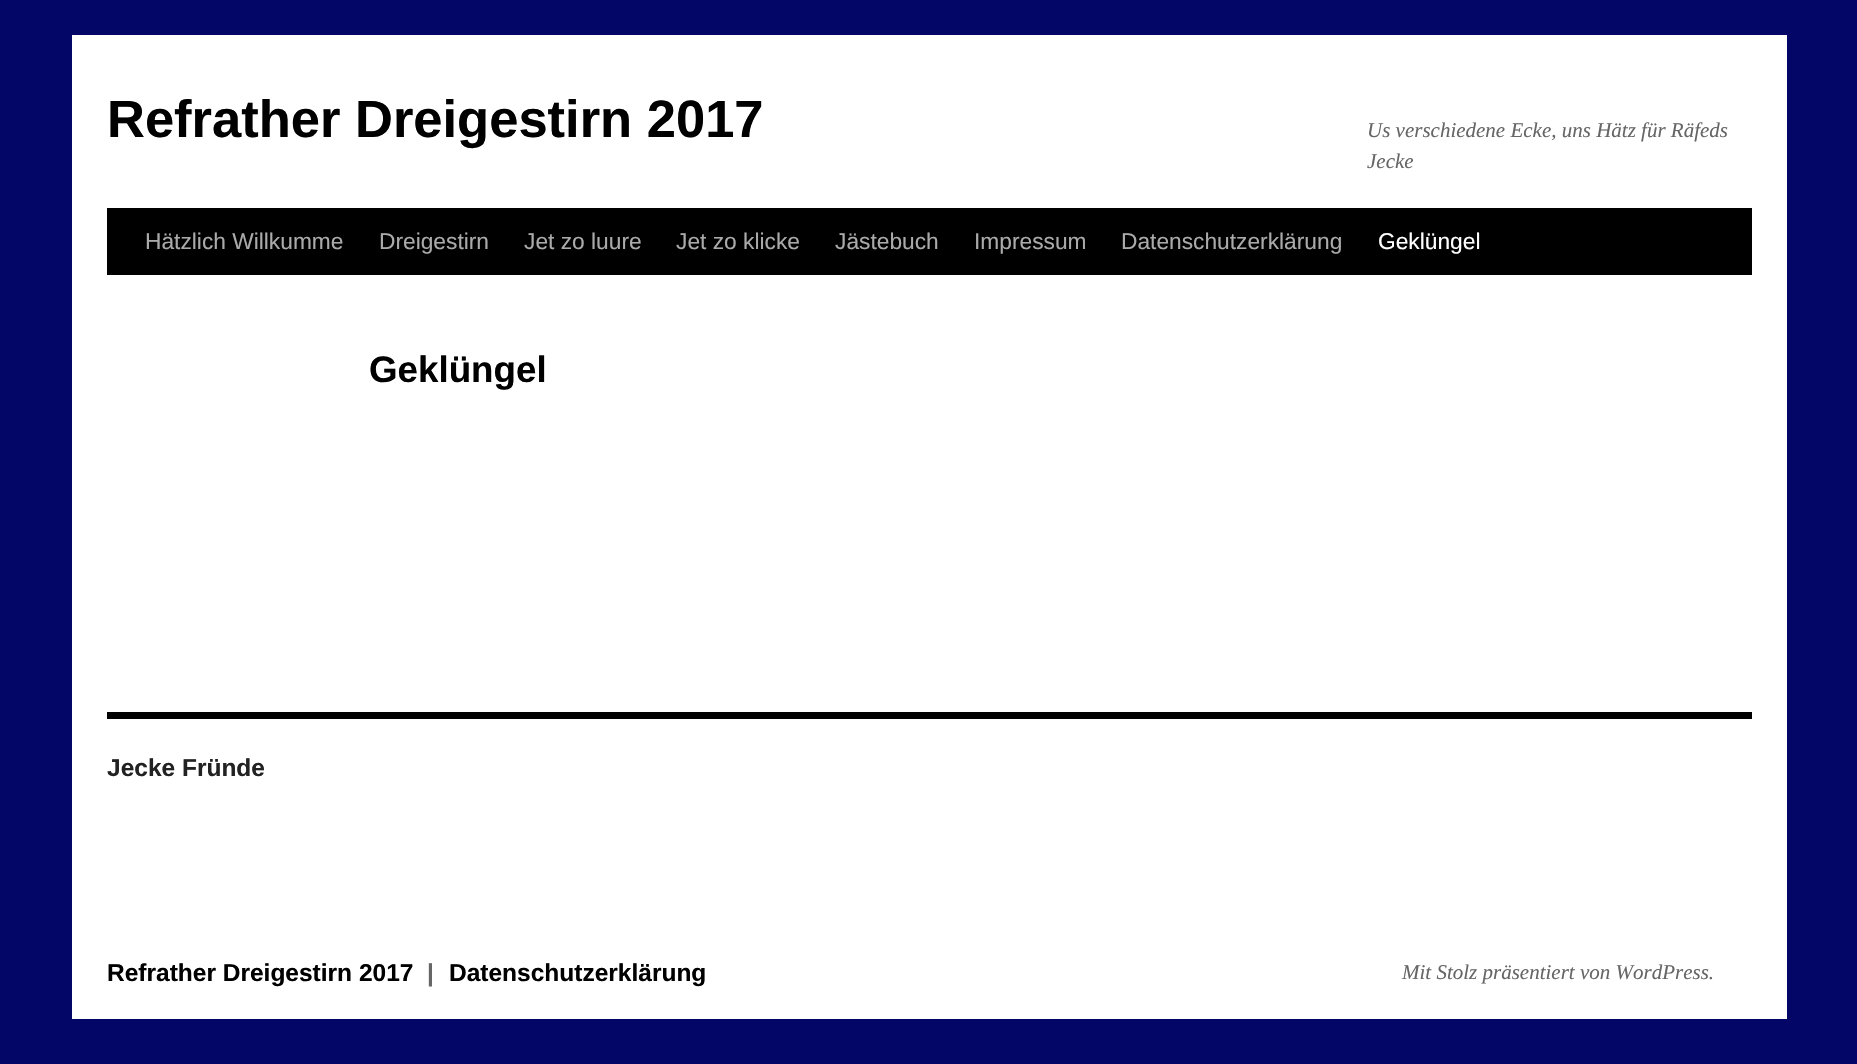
#include "include/core/SkBlurTypes.h"
#include "include/core/SkCanvas.h"
#include "include/core/SkData.h"
#include "include/core/SkFont.h"
#include "include/core/SkFontMgr.h"
#include "include/core/SkImage.h"
#include "include/core/SkMaskFilter.h"
#include "include/core/SkPaint.h"
#include "include/core/SkPathBuilder.h"
#include "include/core/SkTextBlob.h"
#include "include/effects/SkDashPathEffect.h"
#include "include/effects/SkGradientShader.h"
#include "include/utils/SkParsePath.h"

extern sk_sp<SkFontMgr> fontMgr;

void draw(SkCanvas* canvas) {
  SkPaint p;
  p.setAntiAlias(true);
  canvas->clear(SkColorSetRGB(3, 6, 102));
  p.setColor(SK_ColorWHITE);
  canvas->drawRect(SkRect::MakeLTRB(72, 35, 1787, 1019), p);
  p.setColor(SK_ColorBLACK);
  canvas->drawRect(SkRect::MakeLTRB(107, 208, 1752, 275), p);
  canvas->drawRect(SkRect::MakeLTRB(107, 712, 1752, 719), p);
  SkFont font1(fontMgr->matchFamilyStyle("Liberation Sans", SkFontStyle::Bold()), 52.5f);
  font1.setSubpixel(true);
  canvas->drawString("Refrather Dreigestirn 2017", 107, 137, font1, p);
  SkFont font2(fontMgr->matchFamilyStyle("Liberation Serif", SkFontStyle::Italic()), 21);
  font2.setSubpixel(true);
  p.setColor(SkColorSetRGB(102, 102, 102));
  canvas->drawString("Us verschiedene Ecke, uns Hätz für Räfeds", 1367, 137, font2, p);
  canvas->drawString("Jecke", 1367, 168, font2, p);
  SkFont font3(fontMgr->matchFamilyStyle("Liberation Sans", SkFontStyle::Normal()), 22.75f);
  font3.setSubpixel(true);
  p.setColor(SkColorSetRGB(170, 170, 170));
  canvas->drawString("Hätzlich Willkumme", 145, 249, font3, p);
  canvas->drawString("Dreigestirn", 379, 249, font3, p);
  canvas->drawString("Jet zo luure", 524, 249, font3, p);
  canvas->drawString("Jet zo klicke", 676, 249, font3, p);
  canvas->drawString("Jästebuch", 835, 249, font3, p);
  canvas->drawString("Impressum", 974, 249, font3, p);
  canvas->drawString("Datenschutzerklärung", 1121, 249, font3, p);
  p.setColor(SK_ColorWHITE);
  canvas->drawString("Geklüngel", 1378, 249, font3, p);
  SkFont font4(fontMgr->matchFamilyStyle("Liberation Sans", SkFontStyle::Bold()), 36.75f);
  font4.setSubpixel(true);
  p.setColor(SK_ColorBLACK);
  canvas->drawString("Geklüngel", 369, 382, font4, p);
  SkFont font5(fontMgr->matchFamilyStyle("Liberation Sans", SkFontStyle::Bold()), 24.5f);
  font5.setSubpixel(true);
  p.setColor(SkColorSetRGB(34, 34, 34));
  canvas->drawString("Jecke Fründe", 107, 776, font5, p);
  p.setColor(SK_ColorBLACK);
  canvas->drawString("Refrather Dreigestirn 2017", 107, 981, font5, p);
  p.setColor(SkColorSetRGB(102, 102, 102));
  canvas->drawString("|", 427, 981, font5, p);
  p.setColor(SK_ColorBLACK);
  canvas->drawString("Datenschutzerklärung", 449, 981, font5, p);
  p.setColor(SkColorSetRGB(102, 102, 102));
  canvas->drawString("Mit Stolz präsentiert von WordPress.", 1402, 979, font2, p);
}
